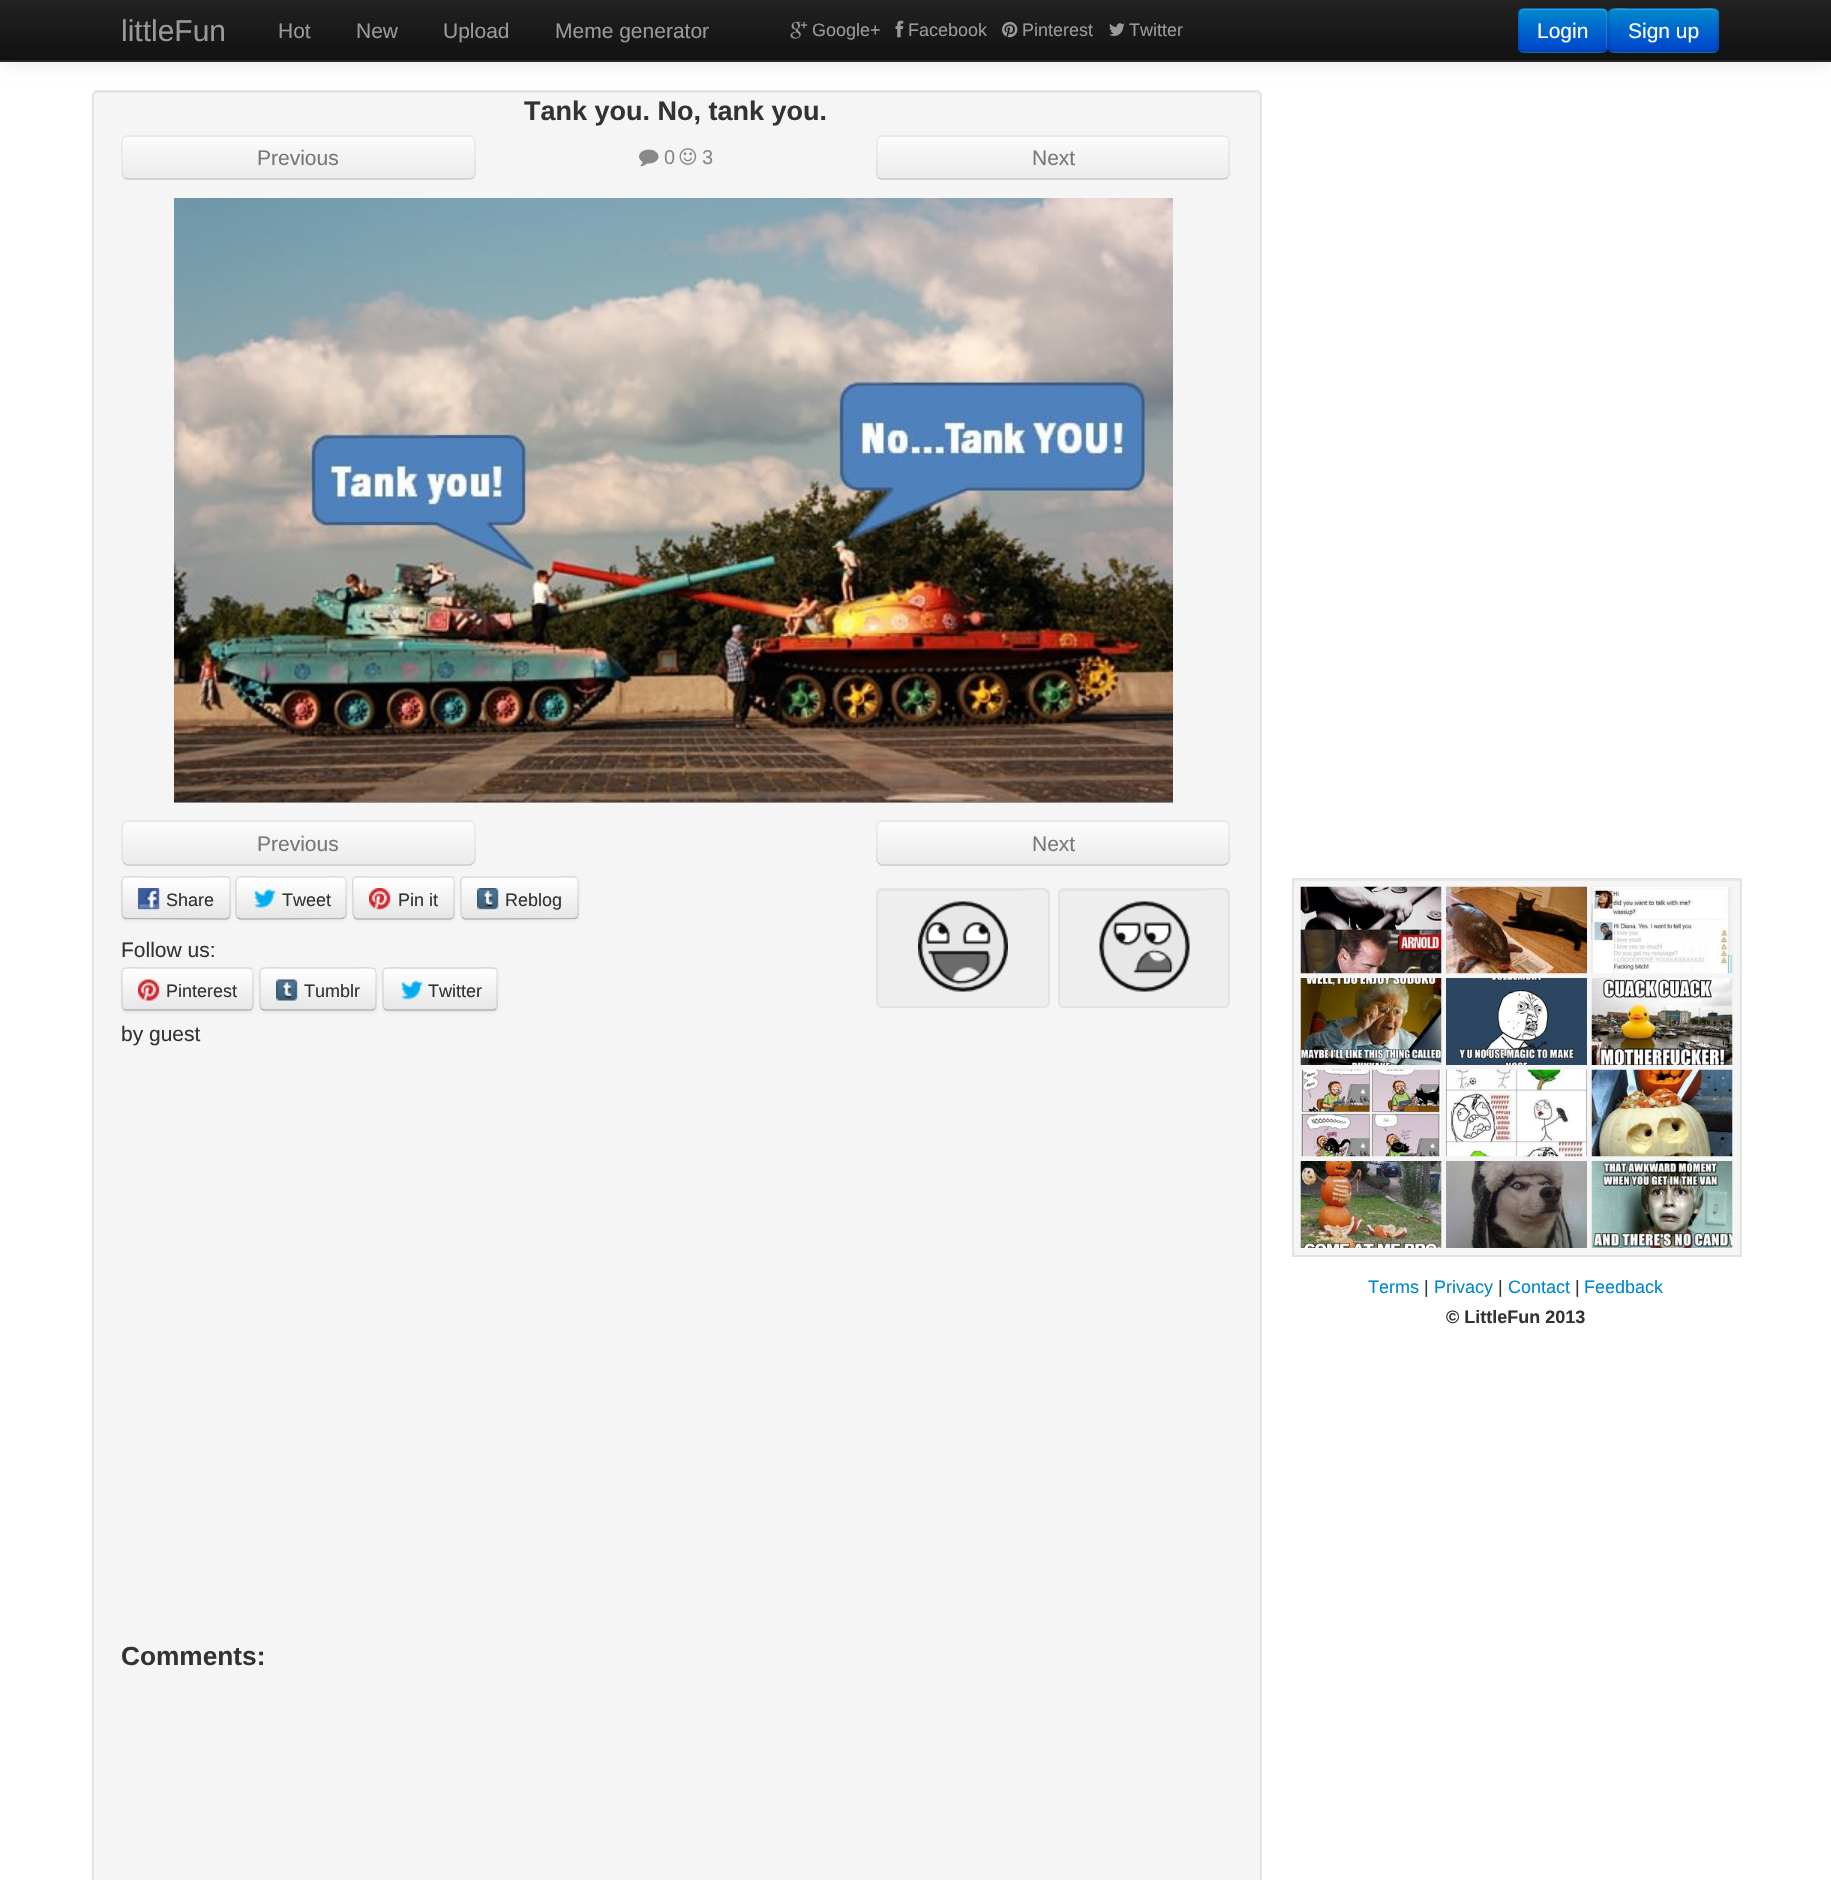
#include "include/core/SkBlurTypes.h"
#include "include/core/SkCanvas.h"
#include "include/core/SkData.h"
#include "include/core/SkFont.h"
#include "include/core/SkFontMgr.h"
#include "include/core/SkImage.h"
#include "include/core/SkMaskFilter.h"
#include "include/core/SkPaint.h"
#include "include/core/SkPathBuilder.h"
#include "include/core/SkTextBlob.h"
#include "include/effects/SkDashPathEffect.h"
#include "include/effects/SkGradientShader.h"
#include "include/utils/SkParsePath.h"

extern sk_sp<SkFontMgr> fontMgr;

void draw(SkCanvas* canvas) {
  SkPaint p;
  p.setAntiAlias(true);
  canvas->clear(SK_ColorWHITE);
  p.setColor(SkColorSetARGB(26, 0, 0, 0));
  p.setMaskFilter(SkMaskFilter::MakeBlur(kNormal_SkBlurStyle, 7.5f));
  canvas->drawRect(SkRect::MakeLTRB(0, 2, 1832, 63), p);
  p.setMaskFilter(nullptr);
  {
    const SkColor colors[] = {SkColorSetRGB(34, 34, 34), SkColorSetRGB(17, 17, 17)};
    const float stops[] = {0, 1};
    const SkPoint ends[] = {{916, 0}, {916, 60}};
    p.setShader(SkGradientShader::MakeLinear(ends, colors, stops, 2, SkTileMode::kClamp));
    p.setAlpha(255);
  }
  canvas->drawRect(SkRect::MakeLTRB(0, 0, 1831, 60), p);
  p.setShader(nullptr);
  p.setColor(SkColorSetRGB(37, 37, 37));
  canvas->drawRect(SkRect::MakeLTRB(0, 60, 1831, 62), p);
  canvas->drawImageRect(SkImages::DeferredFromEncodedData(SkData::MakeFromFileName("images/1.png")), SkRect::MakeLTRB(790, 21, 808, 39), SkSamplingOptions());
  canvas->drawImageRect(SkImages::DeferredFromEncodedData(SkData::MakeFromFileName("images/2.png")), SkRect::MakeLTRB(895, 20, 904, 38), SkSamplingOptions());
  canvas->drawImageRect(SkImages::DeferredFromEncodedData(SkData::MakeFromFileName("images/3.png")), SkRect::MakeLTRB(1002, 21, 1018, 38), SkSamplingOptions());
  canvas->drawImageRect(SkImages::DeferredFromEncodedData(SkData::MakeFromFileName("images/4.png")), SkRect::MakeLTRB(1109, 23, 1125, 36), SkSamplingOptions());
  p.setColor(SkColorSetRGB(0, 109, 204));
  canvas->drawRoundRect(SkRect::MakeLTRB(1518, 8, 1608, 53), 6, 6, p);
  canvas->save();
  canvas->clipPath(SkPathBuilder().moveTo(1524, 8).lineTo(1602, 8).cubicTo(1605.5f, 8, 1608, 10.5f, 1608, 14).lineTo(1608, 47).cubicTo(1608, 50.5f, 1605.5f, 53, 1602, 53).lineTo(1524, 53).cubicTo(1520.5f, 53, 1518, 50.5f, 1518, 47).lineTo(1518, 14).cubicTo(1518, 10.5f, 1520.5f, 8, 1524, 8).close().detach(), true);
  {
    const SkColor colors[] = {SkColorSetRGB(0, 136, 204), SkColorSetRGB(0, 68, 204)};
    const float stops[] = {0, 1};
    const SkPoint ends[] = {{1563, 9}, {1563, 51}};
    p.setShader(SkGradientShader::MakeLinear(ends, colors, stops, 2, SkTileMode::kClamp));
    p.setAlpha(255);
  }
  canvas->drawRect(SkRect::MakeLTRB(1518, 9, 1608, 51), p);
  canvas->restore();
  p.setShader(nullptr);
  p.setColor(SkColorSetARGB(51, 255, 255, 255));
  canvas->drawPath(SkPathBuilder().moveTo(1524, 10).lineTo(1602, 10).cubicTo(1608, 10, 1606, 24, 1606, 26).lineTo(1606, 49).cubicTo(1607, 48, 1607, 47, 1607, 46).lineTo(1607, 14).cubicTo(1607, 11, 1605, 9, 1602, 9).lineTo(1525, 9).cubicTo(1522, 9, 1520, 11, 1520, 14).lineTo(1520, 15).cubicTo(1520, 13, 1522, 10, 1524, 10).close().detach(), p);
  p.setStyle(SkPaint::kStroke_Style);
  p.setStrokeWidth(1.5f);
  p.setColor(SkColorSetARGB(64, 0, 0, 0));
  canvas->drawPath(SkPathBuilder().moveTo(1605.5f, 50).lineTo(1602.5f, 51.5f).lineTo(1523.5f, 51.5f).lineTo(1520.5f, 50).detach(), p);
  p.setStyle(SkPaint::kFill_Style);
  p.setColor(SkColorSetRGB(0, 109, 204));
  canvas->drawRoundRect(SkRect::MakeLTRB(1608, 8, 1719, 53), 6, 6, p);
  canvas->save();
  canvas->clipPath(SkPathBuilder().moveTo(1614, 8).lineTo(1713, 8).cubicTo(1716.5f, 8, 1719, 10.5f, 1719, 14).lineTo(1719, 47).cubicTo(1719, 50.5f, 1716.5f, 53, 1713, 53).lineTo(1614, 53).cubicTo(1610.5f, 53, 1608, 50.5f, 1608, 47).lineTo(1608, 14).cubicTo(1608, 10.5f, 1610.5f, 8, 1614, 8).close().detach(), true);
  {
    const SkColor colors[] = {SkColorSetRGB(0, 136, 204), SkColorSetRGB(0, 68, 204)};
    const float stops[] = {0, 1};
    const SkPoint ends[] = {{1664, 9}, {1664, 51}};
    p.setShader(SkGradientShader::MakeLinear(ends, colors, stops, 2, SkTileMode::kClamp));
    p.setAlpha(255);
  }
  canvas->drawRect(SkRect::MakeLTRB(1608, 9, 1719, 51), p);
  canvas->restore();
  p.setShader(nullptr);
  p.setColor(SkColorSetARGB(51, 255, 255, 255));
  canvas->drawPath(SkPathBuilder().moveTo(1614, 10).lineTo(1713, 10).cubicTo(1715, 10, 1718, 13, 1718, 15).cubicTo(1718, 5, 1702, 9, 1697, 9).lineTo(1631, 9).cubicTo(1626, 9, 1610, 5, 1610, 15).cubicTo(1610, 13, 1612, 10, 1614, 10).close().detach(), p);
  p.setStyle(SkPaint::kStroke_Style);
  p.setColor(SkColorSetARGB(64, 0, 0, 0));
  canvas->drawPath(SkPathBuilder().moveTo(1716.5f, 50).lineTo(1713.5f, 51.5f).lineTo(1613.5f, 51.5f).lineTo(1610.5f, 50).detach(), p);
  p.setColor(SkColorSetARGB(26, 0, 0, 0));
  canvas->drawPath(SkPathBuilder().moveTo(1610.5f, 50).cubicTo(1608, 48, 1609, 44, 1609, 41).lineTo(1609, 30).cubicTo(1609, 5.5f, 1605, 8, 1630.5f, 8).lineTo(1696.5f, 8).cubicTo(1722, 8, 1718, 5.5f, 1718, 30).lineTo(1718, 41).cubicTo(1718, 44, 1719, 48, 1716.5f, 50).detach(), p);
  canvas->drawPath(SkPathBuilder().moveTo(1520.5f, 50).cubicTo(1518, 48, 1519, 44, 1519, 41).lineTo(1519, 30).cubicTo(1519, 7, 1514.5f, 8, 1537, 8).lineTo(1589, 8).cubicTo(1611.5f, 8, 1607, 7, 1607, 30).lineTo(1607, 41).cubicTo(1607, 44, 1608, 48, 1605.5f, 50).detach(), p);
  p.setStyle(SkPaint::kFill_Style);
  p.setColor(SkColorSetRGB(245, 245, 245));
  canvas->drawRoundRect(SkRect::MakeLTRB(92, 90, 1262, 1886), 6, 6, p);
  p.setColor(SkColorSetRGB(233, 233, 233));
  canvas->drawPath(SkPathBuilder().moveTo(98, 93).lineTo(1256, 93).cubicTo(1258, 93, 1260, 95, 1260, 98).cubicTo(1260, 95, 1258, 92, 1255, 92).lineTo(98, 92).cubicTo(95, 92, 93, 95, 93, 98).cubicTo(93, 95, 95, 93, 98, 93).close().detach(), p);
  p.setStyle(SkPaint::kStroke_Style);
  p.setStrokeWidth(2);
  p.setColor(SkColorSetRGB(227, 227, 227));
  canvas->drawRoundRect(SkRect::MakeLTRB(93, 91, 1261, 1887), 5, 5, p);
  canvas->save();
  canvas->clipPath(SkPathBuilder().moveTo(128, 135).lineTo(470, 135).cubicTo(473.5f, 135, 476, 137.5f, 476, 141).lineTo(476, 174).cubicTo(476, 177.5f, 473.5f, 180, 470, 180).lineTo(128, 180).cubicTo(124.5f, 180, 122, 177.5f, 122, 174).lineTo(122, 141).cubicTo(122, 137.5f, 124.5f, 135, 128, 135).close().detach(), true);
  p.setStyle(SkPaint::kFill_Style);
  {
    const SkColor colors[] = {SkColorSetRGB(252, 252, 252), SkColorSetRGB(235, 235, 235)};
    const float stops[] = {0, 1};
    const SkPoint ends[] = {{299, 136}, {299, 179}};
    p.setShader(SkGradientShader::MakeLinear(ends, colors, stops, 2, SkTileMode::kClamp));
    p.setAlpha(255);
  }
  canvas->drawRect(SkRect::MakeLTRB(122, 137, 476, 179), p);
  canvas->restore();
  p.setStyle(SkPaint::kStroke_Style);
  p.setStrokeWidth(1.5f);
  p.setShader(nullptr);
  p.setColor(SkColorSetRGB(202, 202, 202));
  canvas->drawPath(SkPathBuilder().moveTo(473, 177.5f).cubicTo(472, 178.5f, 471, 179, 469.5f, 179).lineTo(127.5f, 179).cubicTo(126, 179, 125, 178.5f, 124, 177.5f).detach(), p);
  p.setColor(SkColorSetARGB(26, 86, 86, 86));
  canvas->drawPath(SkPathBuilder().moveTo(124, 177.5f).cubicTo(120.5f, 174.5f, 122, 166.5f, 122, 163).lineTo(122, 152).cubicTo(122, 148, 120, 136, 127.5f, 136).lineTo(469.5f, 136).cubicTo(477, 136, 475, 148, 475, 152).lineTo(475, 163).cubicTo(475, 166.5f, 476.5f, 174.5f, 473, 177.5f).detach(), p);
  canvas->drawImageRect(SkImages::DeferredFromEncodedData(SkData::MakeFromFileName("images/5.png")), SkRect::MakeLTRB(639, 149, 659, 167), SkSamplingOptions());
  canvas->drawImageRect(SkImages::DeferredFromEncodedData(SkData::MakeFromFileName("images/6.png")), SkRect::MakeLTRB(679, 148, 697, 165), SkSamplingOptions());
  canvas->save();
  canvas->clipPath(SkPathBuilder().moveTo(882, 135).lineTo(1224, 135).cubicTo(1227.5f, 135, 1230, 137.5f, 1230, 141).lineTo(1230, 174).cubicTo(1230, 177.5f, 1227.5f, 180, 1224, 180).lineTo(882, 180).cubicTo(878.5f, 180, 876, 177.5f, 876, 174).lineTo(876, 141).cubicTo(876, 137.5f, 878.5f, 135, 882, 135).close().detach(), true);
  p.setStyle(SkPaint::kFill_Style);
  {
    const SkColor colors[] = {SkColorSetRGB(252, 252, 252), SkColorSetRGB(235, 235, 235)};
    const float stops[] = {0, 1};
    const SkPoint ends[] = {{1053, 136}, {1053, 179}};
    p.setShader(SkGradientShader::MakeLinear(ends, colors, stops, 2, SkTileMode::kClamp));
    p.setAlpha(255);
  }
  canvas->drawRect(SkRect::MakeLTRB(876, 137, 1230, 179), p);
  canvas->restore();
  p.setShader(nullptr);
  p.setColor(SkColorSetARGB(51, 252, 252, 252));
  canvas->drawPath(SkPathBuilder().moveTo(882, 138).lineTo(1224, 138).cubicTo(1226, 138, 1228, 140, 1228, 142).lineTo(1228, 177).cubicTo(1229, 176, 1229, 175, 1229, 174).lineTo(1229, 142).cubicTo(1229, 139, 1227, 137, 1224, 137).lineTo(883, 137).cubicTo(880, 137, 878, 139, 878, 142).cubicTo(878, 140, 880, 138, 882, 138).close().detach(), p);
  p.setStyle(SkPaint::kStroke_Style);
  p.setColor(SkColorSetRGB(202, 202, 202));
  canvas->drawPath(SkPathBuilder().moveTo(1227.5f, 177.5f).cubicTo(1226.5f, 178.5f, 1225.5f, 179, 1224, 179).lineTo(882, 179).cubicTo(880.5f, 179, 879.5f, 178.5f, 878.5f, 177.5f).detach(), p);
  p.setColor(SkColorSetARGB(26, 86, 86, 86));
  canvas->drawPath(SkPathBuilder().moveTo(878.5f, 177.5f).cubicTo(875, 174.5f, 877, 166.5f, 877, 163).lineTo(877, 152).cubicTo(877, 148, 874.5f, 136, 882, 136).lineTo(1224, 136).cubicTo(1231.5f, 136, 1229, 148, 1229, 152).lineTo(1229, 163).cubicTo(1229, 166.5f, 1231, 174.5f, 1227.5f, 177.5f).detach(), p);
  canvas->drawImageRect(SkImages::DeferredFromEncodedData(SkData::MakeFromFileName("images/7.png")), SkRect::MakeLTRB(174, 198, 1173, 803), SkSamplingOptions());
  canvas->save();
  canvas->clipPath(SkPathBuilder().moveTo(128, 821).lineTo(470, 821).cubicTo(473.5f, 821, 476, 823.5f, 476, 827).lineTo(476, 860).cubicTo(476, 863.5f, 473.5f, 866, 470, 866).lineTo(128, 866).cubicTo(124.5f, 866, 122, 863.5f, 122, 860).lineTo(122, 827).cubicTo(122, 823.5f, 124.5f, 821, 128, 821).close().detach(), true);
  p.setStyle(SkPaint::kFill_Style);
  {
    const SkColor colors[] = {SkColorSetRGB(252, 252, 252), SkColorSetRGB(235, 235, 235)};
    const float stops[] = {0, 1};
    const SkPoint ends[] = {{299, 822}, {299, 864}};
    p.setShader(SkGradientShader::MakeLinear(ends, colors, stops, 2, SkTileMode::kClamp));
    p.setAlpha(255);
  }
  canvas->drawRect(SkRect::MakeLTRB(122, 822, 476, 864), p);
  canvas->restore();
  p.setStyle(SkPaint::kStroke_Style);
  p.setShader(nullptr);
  p.setColor(SkColorSetRGB(202, 202, 202));
  canvas->drawPath(SkPathBuilder().moveTo(473, 863).cubicTo(472, 864, 471, 865, 469.5f, 865).lineTo(127.5f, 865).cubicTo(126, 865, 125, 864, 124, 863).detach(), p);
  p.setColor(SkColorSetARGB(26, 86, 86, 86));
  canvas->drawPath(SkPathBuilder().moveTo(124, 863).cubicTo(120.5f, 860, 122, 852, 122, 848.5f).lineTo(122, 837.5f).cubicTo(122, 833.5f, 120, 821.5f, 127.5f, 821).lineTo(469.5f, 821).cubicTo(477, 821.5f, 475, 833.5f, 475, 837.5f).lineTo(475, 848.5f).cubicTo(475, 852, 476.5f, 860, 473, 863).detach(), p);
  canvas->save();
  canvas->clipPath(SkPathBuilder().moveTo(882, 821).lineTo(1224, 821).cubicTo(1227.5f, 821, 1230, 823.5f, 1230, 827).lineTo(1230, 860).cubicTo(1230, 863.5f, 1227.5f, 866, 1224, 866).lineTo(882, 866).cubicTo(878.5f, 866, 876, 863.5f, 876, 860).lineTo(876, 827).cubicTo(876, 823.5f, 878.5f, 821, 882, 821).close().detach(), true);
  p.setStyle(SkPaint::kFill_Style);
  {
    const SkColor colors[] = {SkColorSetRGB(252, 252, 252), SkColorSetRGB(235, 235, 235)};
    const float stops[] = {0, 1};
    const SkPoint ends[] = {{1053, 822}, {1053, 864}};
    p.setShader(SkGradientShader::MakeLinear(ends, colors, stops, 2, SkTileMode::kClamp));
    p.setAlpha(255);
  }
  canvas->drawRect(SkRect::MakeLTRB(876, 822, 1230, 864), p);
  canvas->restore();
  p.setShader(nullptr);
  p.setColor(SkColorSetARGB(51, 252, 252, 252));
  canvas->drawPath(SkPathBuilder().moveTo(882, 824).lineTo(1224, 824).cubicTo(1226, 824, 1228, 826, 1228, 828).lineTo(1228, 862).cubicTo(1229, 861, 1229, 860, 1229, 859).lineTo(1229, 827).cubicTo(1229, 824, 1227, 822, 1224, 822).lineTo(883, 822).cubicTo(880, 822, 878, 824, 878, 827).lineTo(878, 828).cubicTo(878, 826, 880, 824, 882, 824).close().detach(), p);
  p.setStyle(SkPaint::kStroke_Style);
  p.setColor(SkColorSetRGB(202, 202, 202));
  canvas->drawPath(SkPathBuilder().moveTo(1227.5f, 863).cubicTo(1226.5f, 864, 1225.5f, 865, 1224, 865).lineTo(882, 865).cubicTo(880.5f, 865, 879.5f, 864, 878.5f, 863).detach(), p);
  p.setColor(SkColorSetARGB(26, 86, 86, 86));
  canvas->drawPath(SkPathBuilder().moveTo(878.5f, 863).cubicTo(875, 860, 877, 852, 877, 848.5f).lineTo(877, 837.5f).cubicTo(877, 833.5f, 874.5f, 821.5f, 882, 821).lineTo(1224, 821).cubicTo(1231.5f, 821.5f, 1229, 833.5f, 1229, 837.5f).lineTo(1229, 848.5f).cubicTo(1229, 852, 1231, 860, 1227.5f, 863).detach(), p);
  p.setStyle(SkPaint::kFill_Style);
  p.setColor(SkColorSetARGB(13, 0, 0, 0));
  p.setMaskFilter(SkMaskFilter::MakeBlur(kNormal_SkBlurStyle, 1.5f));
  canvas->drawRoundRect(SkRect::MakeLTRB(122, 878, 231, 921), 5, 5, p);
  p.setMaskFilter(nullptr);
  p.setColor(SkColorSetRGB(245, 245, 245));
  canvas->drawRoundRect(SkRect::MakeLTRB(122, 876, 231, 920), 5, 5, p);
  canvas->save();
  canvas->clipPath(SkPathBuilder().moveTo(127, 876).lineTo(226, 876).cubicTo(229, 876, 231, 878, 231, 881).lineTo(231, 915).cubicTo(231, 918, 229, 920, 226, 920).lineTo(127, 920).cubicTo(124, 920, 122, 918, 122, 915).lineTo(122, 881).cubicTo(122, 878, 124, 876, 127, 876).close().detach(), true);
  {
    const SkColor colors[] = {SK_ColorWHITE, SkColorSetRGB(230, 230, 230)};
    const float stops[] = {0, 1};
    const SkPoint ends[] = {{176, 878}, {176, 918}};
    p.setShader(SkGradientShader::MakeLinear(ends, colors, stops, 2, SkTileMode::kClamp));
    p.setAlpha(255);
  }
  canvas->drawRect(SkRect::MakeLTRB(122, 878, 231, 918), p);
  canvas->restore();
  p.setStyle(SkPaint::kStroke_Style);
  p.setShader(nullptr);
  p.setColor(SkColorSetRGB(179, 179, 179));
  canvas->drawPath(SkPathBuilder().moveTo(229, 917.5f).lineTo(226.5f, 919).lineTo(125.5f, 918.5f).lineTo(123.5f, 917.5f).detach(), p);
  p.setColor(SkColorSetARGB(26, 0, 0, 0));
  canvas->drawPath(SkPathBuilder().moveTo(123.5f, 917.5f).cubicTo(121.5f, 915.5f, 122, 911, 122, 909).lineTo(122, 898).cubicTo(122, 873, 118, 877, 143, 877).lineTo(210, 877).cubicTo(234.5f, 877, 230, 873, 230, 898).lineTo(230, 909).cubicTo(230, 911, 231, 915.5f, 229, 917.5f).detach(), p);
  canvas->drawImageRect(SkImages::DeferredFromEncodedData(SkData::MakeFromFileName("images/8.png")), SkRect::MakeLTRB(138, 888, 160, 910), SkSamplingOptions());
  p.setStyle(SkPaint::kFill_Style);
  p.setColor(SkColorSetARGB(13, 0, 0, 0));
  p.setMaskFilter(SkMaskFilter::MakeBlur(kNormal_SkBlurStyle, 1.5f));
  canvas->drawRoundRect(SkRect::MakeLTRB(236, 878, 347, 921), 5, 5, p);
  p.setMaskFilter(nullptr);
  p.setColor(SkColorSetRGB(245, 245, 245));
  canvas->drawRoundRect(SkRect::MakeLTRB(236, 876, 347, 920), 5, 5, p);
  canvas->save();
  canvas->clipPath(SkPathBuilder().moveTo(241, 876).lineTo(342, 876).cubicTo(345, 876, 347, 878, 347, 881).lineTo(347, 915).cubicTo(347, 918, 345, 920, 342, 920).lineTo(241, 920).cubicTo(238, 920, 236, 918, 236, 915).lineTo(236, 881).cubicTo(236, 878, 238, 876, 241, 876).close().detach(), true);
  {
    const SkColor colors[] = {SK_ColorWHITE, SkColorSetRGB(230, 230, 230)};
    const float stops[] = {0, 1};
    const SkPoint ends[] = {{291, 878}, {291, 918}};
    p.setShader(SkGradientShader::MakeLinear(ends, colors, stops, 2, SkTileMode::kClamp));
    p.setAlpha(255);
  }
  canvas->drawRect(SkRect::MakeLTRB(236, 878, 347, 918), p);
  canvas->restore();
  p.setStyle(SkPaint::kStroke_Style);
  p.setShader(nullptr);
  p.setColor(SkColorSetRGB(179, 179, 179));
  canvas->drawPath(SkPathBuilder().moveTo(344.5f, 917.5f).lineTo(342.5f, 918.5f).lineTo(257, 919).lineTo(240, 919).lineTo(237.5f, 917.5f).detach(), p);
  p.setColor(SkColorSetARGB(26, 0, 0, 0));
  canvas->drawPath(SkPathBuilder().moveTo(237.5f, 917.5f).cubicTo(235.5f, 915.5f, 236, 911, 236, 909).lineTo(236, 898).cubicTo(236, 873, 232, 877, 257, 877).lineTo(325, 877).cubicTo(350, 877, 346, 873, 346, 898).lineTo(346, 909).cubicTo(346, 911, 346.5f, 915.5f, 344.5f, 917.5f).detach(), p);
  canvas->drawImageRect(SkImages::DeferredFromEncodedData(SkData::MakeFromFileName("images/9.png")), SkRect::MakeLTRB(253, 889, 276, 908), SkSamplingOptions());
  p.setStyle(SkPaint::kFill_Style);
  p.setColor(SkColorSetARGB(13, 0, 0, 0));
  p.setMaskFilter(SkMaskFilter::MakeBlur(kNormal_SkBlurStyle, 1.5f));
  canvas->drawRoundRect(SkRect::MakeLTRB(353, 878, 455, 921), 5, 5, p);
  p.setMaskFilter(nullptr);
  p.setColor(SkColorSetRGB(245, 245, 245));
  canvas->drawRoundRect(SkRect::MakeLTRB(353, 876, 455, 920), 5, 5, p);
  canvas->save();
  canvas->clipPath(SkPathBuilder().moveTo(358, 876).lineTo(450, 876).cubicTo(453, 876, 455, 878, 455, 881).lineTo(455, 915).cubicTo(455, 918, 453, 920, 450, 920).lineTo(358, 920).cubicTo(355, 920, 353, 918, 353, 915).lineTo(353, 881).cubicTo(353, 878, 355, 876, 358, 876).close().detach(), true);
  {
    const SkColor colors[] = {SK_ColorWHITE, SkColorSetRGB(230, 230, 230)};
    const float stops[] = {0, 1};
    const SkPoint ends[] = {{404, 878}, {404, 918}};
    p.setShader(SkGradientShader::MakeLinear(ends, colors, stops, 2, SkTileMode::kClamp));
    p.setAlpha(255);
  }
  canvas->drawRect(SkRect::MakeLTRB(353, 878, 455, 918), p);
  canvas->restore();
  p.setStyle(SkPaint::kStroke_Style);
  p.setShader(nullptr);
  p.setColor(SkColorSetRGB(179, 179, 179));
  canvas->drawPath(SkPathBuilder().moveTo(452.5f, 917.5f).cubicTo(452, 918.5f, 451, 919, 450, 919).lineTo(357, 919).cubicTo(356, 919, 355, 918.5f, 354.5f, 917.5f).detach(), p);
  p.setColor(SkColorSetARGB(26, 0, 0, 0));
  canvas->drawPath(SkPathBuilder().moveTo(354.5f, 917.5f).cubicTo(352.5f, 915.5f, 353, 911, 353, 909).lineTo(353, 898).cubicTo(353, 873.5f, 348.5f, 877, 372.5f, 877).lineTo(434.5f, 877).cubicTo(458.5f, 877, 454, 873.5f, 454, 898).lineTo(454, 909).cubicTo(454, 911, 454.5f, 915.5f, 452.5f, 917.5f).detach(), p);
  canvas->drawImageRect(SkImages::DeferredFromEncodedData(SkData::MakeFromFileName("images/10.png")), SkRect::MakeLTRB(369, 888, 391, 910), SkSamplingOptions());
  p.setStyle(SkPaint::kFill_Style);
  p.setColor(SkColorSetARGB(13, 0, 0, 0));
  p.setMaskFilter(SkMaskFilter::MakeBlur(kNormal_SkBlurStyle, 1.5f));
  canvas->drawRoundRect(SkRect::MakeLTRB(461, 878, 579, 921), 5, 5, p);
  p.setMaskFilter(nullptr);
  p.setColor(SkColorSetRGB(245, 245, 245));
  canvas->drawRoundRect(SkRect::MakeLTRB(461, 876, 579, 920), 5, 5, p);
  canvas->save();
  canvas->clipPath(SkPathBuilder().moveTo(466, 876).lineTo(574, 876).cubicTo(577, 876, 579, 878, 579, 881).lineTo(579, 915).cubicTo(579, 918, 577, 920, 574, 920).lineTo(466, 920).cubicTo(463, 920, 461, 918, 461, 915).lineTo(461, 881).cubicTo(461, 878, 463, 876, 466, 876).close().detach(), true);
  {
    const SkColor colors[] = {SK_ColorWHITE, SkColorSetRGB(230, 230, 230)};
    const float stops[] = {0, 1};
    const SkPoint ends[] = {{520, 878}, {520, 918}};
    p.setShader(SkGradientShader::MakeLinear(ends, colors, stops, 2, SkTileMode::kClamp));
    p.setAlpha(255);
  }
  canvas->drawRect(SkRect::MakeLTRB(461, 878, 579, 918), p);
  canvas->restore();
  p.setStyle(SkPaint::kStroke_Style);
  p.setShader(nullptr);
  p.setColor(SkColorSetRGB(179, 179, 179));
  canvas->drawPath(SkPathBuilder().moveTo(577, 917.5f).lineTo(575, 918.5f).lineTo(483, 919).lineTo(465, 919).lineTo(462.5f, 917.5f).detach(), p);
  p.setColor(SkColorSetARGB(26, 0, 0, 0));
  canvas->drawPath(SkPathBuilder().moveTo(462.5f, 917.5f).cubicTo(460, 915, 461, 906.5f, 461, 903.5f).lineTo(461, 886).cubicTo(461, 883.5f, 460, 877, 465, 877).lineTo(556, 877).cubicTo(582.5f, 877, 578, 872.5f, 578, 898).lineTo(578, 909).cubicTo(578, 911, 579, 915.5f, 577, 917.5f).detach(), p);
  canvas->drawImageRect(SkImages::DeferredFromEncodedData(SkData::MakeFromFileName("images/11.png")), SkRect::MakeLTRB(477, 888, 499, 910), SkSamplingOptions());
  p.setStyle(SkPaint::kFill_Style);
  p.setColor(SkColorSetARGB(13, 0, 0, 0));
  p.setMaskFilter(SkMaskFilter::MakeBlur(kNormal_SkBlurStyle, 1.5f));
  canvas->drawRoundRect(SkRect::MakeLTRB(122, 969, 254, 1013), 5, 5, p);
  p.setMaskFilter(nullptr);
  p.setColor(SkColorSetRGB(245, 245, 245));
  canvas->drawRoundRect(SkRect::MakeLTRB(122, 968, 254, 1011), 5, 5, p);
  canvas->save();
  canvas->clipPath(SkPathBuilder().moveTo(127, 968).lineTo(249, 968).cubicTo(252, 968, 254, 970, 254, 973).lineTo(254, 1006).cubicTo(254, 1009, 252, 1011, 249, 1011).lineTo(127, 1011).cubicTo(124, 1011, 122, 1009, 122, 1006).lineTo(122, 973).cubicTo(122, 970, 124, 968, 127, 968).close().detach(), true);
  {
    const SkColor colors[] = {SK_ColorWHITE, SkColorSetRGB(230, 230, 230)};
    const float stops[] = {0, 1};
    const SkPoint ends[] = {{188, 969}, {188, 1010}};
    p.setShader(SkGradientShader::MakeLinear(ends, colors, stops, 2, SkTileMode::kClamp));
    p.setAlpha(255);
  }
  canvas->drawRect(SkRect::MakeLTRB(122, 969, 254, 1010), p);
  canvas->restore();
  p.setStyle(SkPaint::kStroke_Style);
  p.setShader(nullptr);
  p.setColor(SkColorSetRGB(179, 179, 179));
  canvas->drawPath(SkPathBuilder().moveTo(251.5f, 1009).cubicTo(251, 1010, 250, 1010, 249, 1010).lineTo(126, 1010).cubicTo(125, 1010, 124, 1010, 123.5f, 1009).detach(), p);
  p.setColor(SkColorSetARGB(26, 0, 0, 0));
  canvas->drawPath(SkPathBuilder().moveTo(123.5f, 1009).cubicTo(121.5f, 1007, 122, 1002.5f, 122, 1001).lineTo(122, 989).cubicTo(122, 963, 118, 968, 146.5f, 968).lineTo(249, 968).cubicTo(254, 968.5f, 253, 975, 253, 978).lineTo(253, 995).cubicTo(253, 998, 254, 1006.5f, 251.5f, 1009).detach(), p);
  canvas->drawImageRect(SkImages::DeferredFromEncodedData(SkData::MakeFromFileName("images/12.png")), SkRect::MakeLTRB(138, 979, 160, 1001), SkSamplingOptions());
  p.setStyle(SkPaint::kFill_Style);
  p.setColor(SkColorSetARGB(13, 0, 0, 0));
  p.setMaskFilter(SkMaskFilter::MakeBlur(kNormal_SkBlurStyle, 1.5f));
  canvas->drawRoundRect(SkRect::MakeLTRB(260, 969, 377, 1013), 5, 5, p);
  p.setMaskFilter(nullptr);
  p.setColor(SkColorSetRGB(245, 245, 245));
  canvas->drawRoundRect(SkRect::MakeLTRB(260, 968, 377, 1011), 5, 5, p);
  canvas->save();
  canvas->clipPath(SkPathBuilder().moveTo(265, 968).lineTo(372, 968).cubicTo(375, 968, 377, 970, 377, 973).lineTo(377, 1006).cubicTo(377, 1009, 375, 1011, 372, 1011).lineTo(265, 1011).cubicTo(262, 1011, 260, 1009, 260, 1006).lineTo(260, 973).cubicTo(260, 970, 262, 968, 265, 968).close().detach(), true);
  {
    const SkColor colors[] = {SK_ColorWHITE, SkColorSetRGB(230, 230, 230)};
    const float stops[] = {0, 1};
    const SkPoint ends[] = {{318, 969}, {318, 1010}};
    p.setShader(SkGradientShader::MakeLinear(ends, colors, stops, 2, SkTileMode::kClamp));
    p.setAlpha(255);
  }
  canvas->drawRect(SkRect::MakeLTRB(260, 969, 377, 1010), p);
  canvas->restore();
  p.setStyle(SkPaint::kStroke_Style);
  p.setShader(nullptr);
  p.setColor(SkColorSetRGB(179, 179, 179));
  canvas->drawPath(SkPathBuilder().moveTo(374.5f, 1009).lineTo(372.5f, 1010).lineTo(282, 1010).lineTo(264, 1010).lineTo(261.5f, 1009).detach(), p);
  p.setColor(SkColorSetARGB(26, 0, 0, 0));
  canvas->drawPath(SkPathBuilder().moveTo(261.5f, 1009).cubicTo(259.5f, 1007, 260, 1002.5f, 260, 1001).lineTo(260, 989).cubicTo(260, 964, 256, 968, 282, 968).lineTo(354, 968).cubicTo(380, 968, 376, 964, 376, 989).lineTo(376, 1001).cubicTo(376, 1002.5f, 376.5f, 1007, 374.5f, 1009).detach(), p);
  canvas->drawImageRect(SkImages::DeferredFromEncodedData(SkData::MakeFromFileName("images/13.png")), SkRect::MakeLTRB(276, 979, 298, 1001), SkSamplingOptions());
  p.setStyle(SkPaint::kFill_Style);
  p.setColor(SkColorSetARGB(13, 0, 0, 0));
  p.setMaskFilter(SkMaskFilter::MakeBlur(kNormal_SkBlurStyle, 1.5f));
  canvas->drawRoundRect(SkRect::MakeLTRB(383, 969, 498, 1013), 5, 5, p);
  p.setMaskFilter(nullptr);
  canvas->save();
  canvas->clipPath(SkPathBuilder().moveTo(388, 968).lineTo(493, 968).cubicTo(496, 968, 498, 970, 498, 973).lineTo(498, 1006).cubicTo(498, 1009, 496, 1011, 493, 1011).lineTo(388, 1011).cubicTo(385, 1011, 383, 1009, 383, 1006).lineTo(383, 973).cubicTo(383, 970, 385, 968, 388, 968).close().detach(), true);
  {
    const SkColor colors[] = {SK_ColorWHITE, SkColorSetRGB(230, 230, 230)};
    const float stops[] = {0, 1};
    const SkPoint ends[] = {{440, 969}, {440, 1010}};
    p.setShader(SkGradientShader::MakeLinear(ends, colors, stops, 2, SkTileMode::kClamp));
    p.setAlpha(255);
  }
  canvas->drawRect(SkRect::MakeLTRB(383, 969, 498, 1010), p);
  canvas->restore();
  p.setShader(nullptr);
  p.setColor(SkColorSetARGB(51, 255, 255, 255));
  canvas->drawPath(SkPathBuilder().moveTo(387, 970).lineTo(476, 970).cubicTo(499, 970, 496, 966, 496, 985).lineTo(496, 1009).cubicTo(497, 1009, 497, 1008, 497, 1007).lineTo(497, 972).cubicTo(497, 970, 496, 969, 494, 969).lineTo(387, 969).cubicTo(385, 969, 384, 970, 384, 972).lineTo(384, 974).cubicTo(384, 972, 385, 970, 387, 970).close().detach(), p);
  p.setStyle(SkPaint::kStroke_Style);
  p.setColor(SkColorSetRGB(179, 179, 179));
  canvas->drawPath(SkPathBuilder().moveTo(496, 1009).lineTo(493.5f, 1010).lineTo(386.5f, 1010).lineTo(384.5f, 1009).detach(), p);
  p.setColor(SkColorSetARGB(26, 0, 0, 0));
  canvas->drawPath(SkPathBuilder().moveTo(384.5f, 1009).cubicTo(382.5f, 1007, 383, 1002.5f, 383, 1001).lineTo(383, 989).cubicTo(383, 964, 379, 968, 405, 968).lineTo(476, 968).cubicTo(501.5f, 968, 497, 964, 497, 989).lineTo(497, 1001).cubicTo(497, 1002.5f, 498, 1007, 496, 1009).detach(), p);
  canvas->drawImageRect(SkImages::DeferredFromEncodedData(SkData::MakeFromFileName("images/14.png")), SkRect::MakeLTRB(400, 980, 423, 1000), SkSamplingOptions());
  p.setStyle(SkPaint::kFill_Style);
  p.setColor(SkColorSetRGB(238, 238, 238));
  canvas->drawRoundRect(SkRect::MakeLTRB(876, 888, 1050, 1008), 6, 6, p);
  p.setColor(SkColorSetRGB(226, 226, 226));
  canvas->drawPath(SkPathBuilder().moveTo(882, 891).lineTo(1017, 891).cubicTo(1027, 891, 1048, 886, 1048, 896).lineTo(1048, 1005).cubicTo(1049, 1004, 1049, 1003, 1049, 1002).lineTo(1049, 895).cubicTo(1049, 892, 1047, 890, 1044, 890).lineTo(883, 890).cubicTo(880, 890, 878, 892, 878, 895).lineTo(878, 896).cubicTo(878, 893, 880, 891, 882, 891).close().detach(), p);
  p.setStyle(SkPaint::kStroke_Style);
  p.setStrokeWidth(2);
  p.setColor(SkColorSetRGB(227, 227, 227));
  canvas->drawRoundRect(SkRect::MakeLTRB(877, 889, 1049, 1007), 5, 5, p);
  canvas->drawImageRect(SkImages::DeferredFromEncodedData(SkData::MakeFromFileName("images/15.png")), SkRect::MakeLTRB(918, 901, 1008, 992), SkSamplingOptions());
  p.setStyle(SkPaint::kFill_Style);
  p.setColor(SkColorSetRGB(238, 238, 238));
  canvas->drawRoundRect(SkRect::MakeLTRB(1058, 888, 1230, 1008), 6, 6, p);
  p.setColor(SkColorSetRGB(226, 226, 226));
  canvas->drawPath(SkPathBuilder().moveTo(1064, 891).lineTo(1197, 891).cubicTo(1207, 891, 1228, 886, 1228, 896).lineTo(1228, 1005).cubicTo(1229, 1004, 1229, 1003, 1229, 1002).lineTo(1229, 895).cubicTo(1229, 892, 1227, 890, 1224, 890).lineTo(1064, 890).cubicTo(1061, 890, 1059, 892, 1059, 895).lineTo(1059, 896).cubicTo(1059, 893, 1061, 891, 1064, 891).close().detach(), p);
  p.setStyle(SkPaint::kStroke_Style);
  p.setColor(SkColorSetRGB(227, 227, 227));
  canvas->drawRoundRect(SkRect::MakeLTRB(1059, 889, 1229, 1007), 5, 5, p);
  canvas->drawImageRect(SkImages::DeferredFromEncodedData(SkData::MakeFromFileName("images/16.png")), SkRect::MakeLTRB(1099, 901, 1190, 992), SkSamplingOptions());
  p.setStyle(SkPaint::kFill_Style);
  p.setColor(SkColorSetRGB(245, 245, 245));
  canvas->drawRect(SkRect::MakeLTRB(1294, 881, 1740, 1255), p);
  p.setColor(SkColorSetRGB(233, 233, 233));
  canvas->drawRect(SkRect::MakeLTRB(1293, 880, 1740, 881), p);
  p.setStyle(SkPaint::kStroke_Style);
  p.setColor(SkColorSetRGB(227, 227, 227));
  canvas->drawRect(SkRect::MakeLTRB(1293, 879, 1741, 1256), p);
  canvas->drawImageRect(SkImages::DeferredFromEncodedData(SkData::MakeFromFileName("images/17.png")), SkRect::MakeLTRB(1300, 886, 1442, 974), SkSamplingOptions());
  canvas->drawImageRect(SkImages::DeferredFromEncodedData(SkData::MakeFromFileName("images/18.png")), SkRect::MakeLTRB(1446, 886, 1587, 974), SkSamplingOptions());
  canvas->drawImageRect(SkImages::DeferredFromEncodedData(SkData::MakeFromFileName("images/19.png")), SkRect::MakeLTRB(1591, 887, 1733, 974), SkSamplingOptions());
  canvas->drawImageRect(SkImages::DeferredFromEncodedData(SkData::MakeFromFileName("images/20.png")), SkRect::MakeLTRB(1300, 978, 1442, 1065), SkSamplingOptions());
  canvas->drawImageRect(SkImages::DeferredFromEncodedData(SkData::MakeFromFileName("images/21.png")), SkRect::MakeLTRB(1446, 978, 1587, 1065), SkSamplingOptions());
  canvas->drawImageRect(SkImages::DeferredFromEncodedData(SkData::MakeFromFileName("images/22.png")), SkRect::MakeLTRB(1591, 978, 1733, 1065), SkSamplingOptions());
  canvas->drawImageRect(SkImages::DeferredFromEncodedData(SkData::MakeFromFileName("images/23.png")), SkRect::MakeLTRB(1301, 1069, 1441, 1157), SkSamplingOptions());
  canvas->drawImageRect(SkImages::DeferredFromEncodedData(SkData::MakeFromFileName("images/24.png")), SkRect::MakeLTRB(1446, 1069, 1587, 1157), SkSamplingOptions());
  canvas->drawImageRect(SkImages::DeferredFromEncodedData(SkData::MakeFromFileName("images/25.png")), SkRect::MakeLTRB(1591, 1069, 1733, 1157), SkSamplingOptions());
  canvas->drawImageRect(SkImages::DeferredFromEncodedData(SkData::MakeFromFileName("images/26.png")), SkRect::MakeLTRB(1300, 1161, 1442, 1248), SkSamplingOptions());
  canvas->drawImageRect(SkImages::DeferredFromEncodedData(SkData::MakeFromFileName("images/27.png")), SkRect::MakeLTRB(1446, 1161, 1587, 1248), SkSamplingOptions());
  canvas->drawImageRect(SkImages::DeferredFromEncodedData(SkData::MakeFromFileName("images/28.png")), SkRect::MakeLTRB(1591, 1161, 1733, 1248), SkSamplingOptions());
  SkFont font1(fontMgr->matchFamilyStyle("Liberation Sans", SkFontStyle::Normal()), 30);
  font1.setSubpixel(true);
  p.setStyle(SkPaint::kFill_Style);
  p.setColor(SkColorSetRGB(153, 153, 153));
  canvas->drawString("littleFun", 121, 41, font1, p);
  SkFont font2(fontMgr->matchFamilyStyle("Liberation Sans", SkFontStyle::Normal()), 21);
  font2.setSubpixel(true);
  canvas->drawString("Hot", 278, 38, font2, p);
  canvas->drawString("New", 356, 38, font2, p);
  canvas->drawString("Upload", 443, 38, font2, p);
  canvas->drawString("Meme generator", 555, 38, font2, p);
  SkFont font3(fontMgr->matchFamilyStyle("Liberation Sans", SkFontStyle::Normal()), 18);
  font3.setSubpixel(true);
  canvas->drawString("Google+", 812, 36, font3, p);
  canvas->drawString("Facebook", 908, 36, font3, p);
  canvas->drawString("Pinterest", 1022, 36, font3, p);
  canvas->drawString("Twitter", 1129, 36, font3, p);
  p.setColor(SK_ColorWHITE);
  canvas->drawString("Login", 1537, 38, font2, p);
  canvas->drawString("Sign up", 1628, 38, font2, p);
  SkFont font4(fontMgr->matchFamilyStyle("Liberation Sans", SkFontStyle::Bold()), 27);
  font4.setSubpixel(true);
  p.setColor(SkColorSetRGB(51, 51, 51));
  canvas->drawString("Tank you. No, tank you.", 524, 120, font4, p);
  p.setColor(SkColorSetRGB(119, 119, 119));
  canvas->drawString("Previous", 257, 165, font2, p);
  SkFont font5(fontMgr->matchFamilyStyle("Liberation Sans", SkFontStyle::Normal()), 20);
  font5.setSubpixel(true);
  p.setColor(SkColorSetRGB(136, 136, 136));
  canvas->drawString("0", 664, 164, font5, p);
  canvas->drawString("3", 702, 164, font5, p);
  p.setColor(SkColorSetRGB(119, 119, 119));
  canvas->drawString("Next", 1032, 165, font2, p);
  canvas->drawString("Previous", 257, 851, font2, p);
  canvas->drawString("Next", 1032, 851, font2, p);
  p.setColor(SkColorSetRGB(51, 51, 51));
  canvas->drawString("Share", 166, 906, font3, p);
  canvas->drawString("Tweet", 282, 906, font3, p);
  canvas->drawString("Pin it", 398, 906, font3, p);
  canvas->drawString("Reblog", 505, 906, font3, p);
  canvas->drawString("Follow us:", 121, 957, font2, p);
  canvas->drawString("Pinterest", 166, 997, font3, p);
  canvas->drawString("Tumblr", 304, 997, font3, p);
  canvas->drawString("Twitter", 428, 997, font3, p);
  canvas->drawString("by guest", 121, 1041, font2, p);
  SkFont font6(fontMgr->matchFamilyStyle("Liberation Sans", SkFontStyle::Bold()), 26.25f);
  font6.setSubpixel(true);
  canvas->drawString("Comments:", 121, 1665, font6, p);
  p.setColor(SkColorSetRGB(0, 136, 204));
  canvas->drawString("Terms", 1368, 1293, font3, p);
  p.setColor(SkColorSetRGB(51, 51, 51));
  canvas->drawString("|", 1424, 1293, font3, p);
  p.setColor(SkColorSetRGB(0, 136, 204));
  canvas->drawString("Privacy", 1434, 1293, font3, p);
  p.setColor(SkColorSetRGB(51, 51, 51));
  canvas->drawString("|", 1498, 1293, font3, p);
  p.setColor(SkColorSetRGB(0, 136, 204));
  canvas->drawString("Contact", 1508, 1293, font3, p);
  p.setColor(SkColorSetRGB(51, 51, 51));
  canvas->drawString("|", 1575, 1293, font3, p);
  p.setColor(SkColorSetRGB(0, 136, 204));
  canvas->drawString("Feedback", 1584, 1293, font3, p);
  SkFont font7(fontMgr->matchFamilyStyle("Liberation Sans", SkFontStyle::Bold()), 18);
  font7.setSubpixel(true);
  p.setColor(SkColorSetRGB(51, 51, 51));
  canvas->drawString("© LittleFun 2013", 1446, 1323, font7, p);
}
